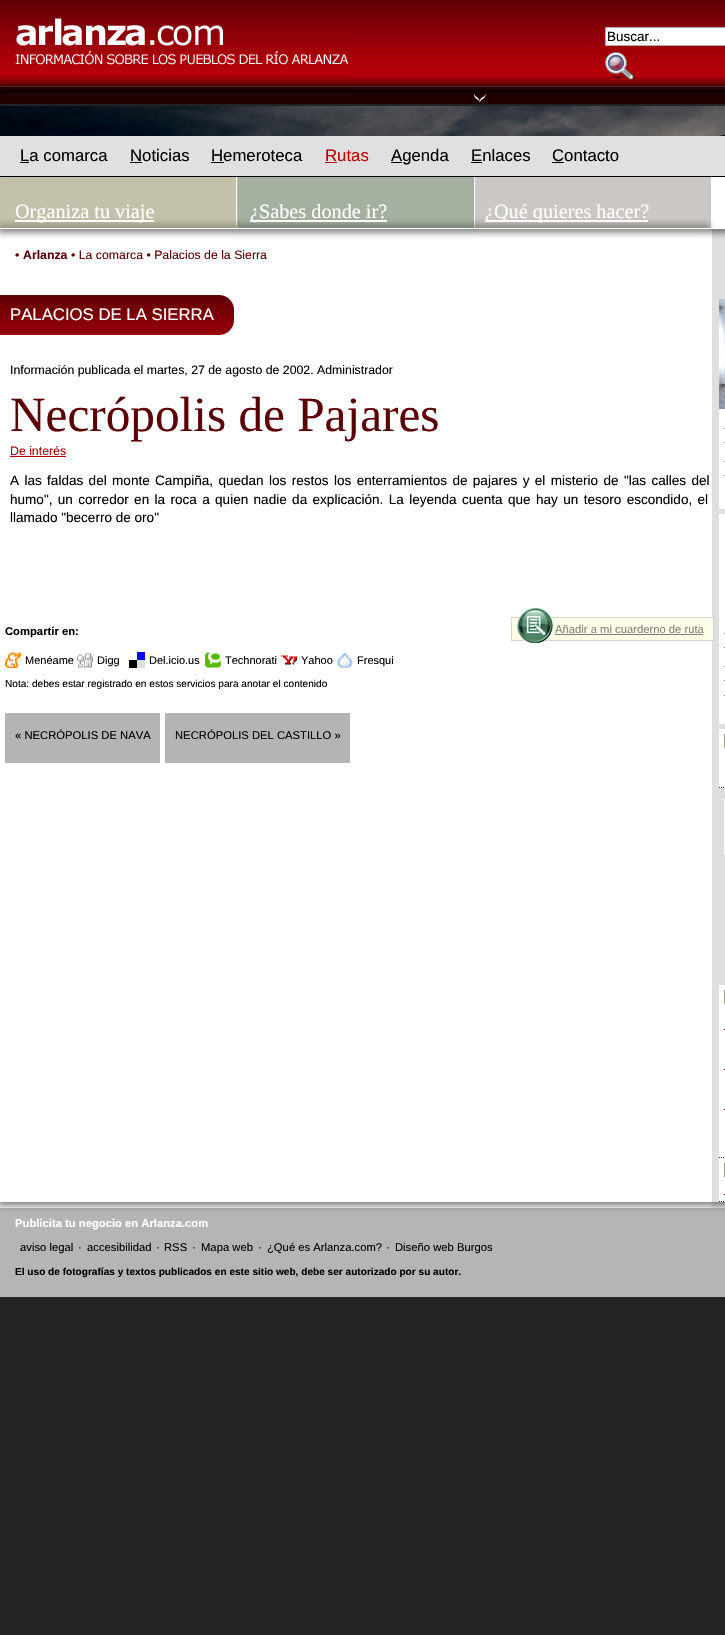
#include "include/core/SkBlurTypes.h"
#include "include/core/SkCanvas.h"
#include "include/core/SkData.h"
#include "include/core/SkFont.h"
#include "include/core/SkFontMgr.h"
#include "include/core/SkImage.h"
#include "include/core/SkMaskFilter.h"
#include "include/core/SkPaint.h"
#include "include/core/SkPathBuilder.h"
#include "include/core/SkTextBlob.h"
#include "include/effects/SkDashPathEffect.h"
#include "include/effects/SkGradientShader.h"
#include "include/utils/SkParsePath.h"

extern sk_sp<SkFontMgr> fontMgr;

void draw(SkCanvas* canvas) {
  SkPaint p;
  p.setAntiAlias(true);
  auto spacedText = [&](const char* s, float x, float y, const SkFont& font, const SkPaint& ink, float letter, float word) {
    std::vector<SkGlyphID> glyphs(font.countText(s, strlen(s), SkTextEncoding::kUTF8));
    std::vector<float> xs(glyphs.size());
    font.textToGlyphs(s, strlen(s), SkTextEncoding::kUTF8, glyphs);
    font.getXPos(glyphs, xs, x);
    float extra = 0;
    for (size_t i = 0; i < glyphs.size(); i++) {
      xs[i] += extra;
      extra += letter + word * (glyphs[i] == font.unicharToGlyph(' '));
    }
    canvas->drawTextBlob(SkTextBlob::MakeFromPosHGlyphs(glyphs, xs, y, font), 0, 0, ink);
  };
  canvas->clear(SkColorSetRGB(35, 35, 35));
  canvas->drawImageRect(SkImages::DeferredFromEncodedData(SkData::MakeFromFileName("images/1.png")), SkRect::MakeLTRB(0, 0, 725, 93), SkSamplingOptions());
  canvas->drawImageRect(SkImages::DeferredFromEncodedData(SkData::MakeFromFileName("images/2.png")), SkRect::MakeLTRB(0, 16, 352, 93), SkSamplingOptions());
  p.setColor(SK_ColorWHITE);
  canvas->drawRect(SkRect::MakeLTRB(605.5f, 27.5f, 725.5f, 45.5f), p);
  p.setStyle(SkPaint::kStroke_Style);
  p.setStrokeWidth(1);
  p.setColor(SkColorSetRGB(170, 170, 170));
  canvas->drawRect(SkRect::MakeLTRB(605.5f, 27.5f, 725.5f, 45.5f), p);
  canvas->drawImageRect(SkImages::DeferredFromEncodedData(SkData::MakeFromFileName("images/3.png")), SkRect::MakeLTRB(605, 52, 634, 80), SkSamplingOptions());
  canvas->drawImageRect(SkImages::DeferredFromEncodedData(SkData::MakeFromFileName("images/4.png")), SkRect::MakeLTRB(0, 93, 725, 104), SkSamplingOptions());
  canvas->drawImageRect(SkImages::DeferredFromEncodedData(SkData::MakeFromFileName("images/5.png")), SkRect::MakeLTRB(0, 106, 725, 136), SkSamplingOptions());
  p.setStyle(SkPaint::kFill_Style);
  p.setColor(SkColorSetRGB(224, 224, 224));
  canvas->drawRect(SkRect::MakeLTRB(0, 136, 725, 176), p);
  p.setColor(SK_ColorBLACK);
  canvas->drawRect(SkRect::MakeLTRB(0, 176, 725, 177), p);
  canvas->drawRect(SkRect::MakeLTRB(20, 162, 29, 163), p);
  canvas->drawRect(SkRect::MakeLTRB(130, 162, 142, 163), p);
  canvas->drawRect(SkRect::MakeLTRB(211, 162, 224, 163), p);
  p.setColor(SkColorSetRGB(187, 0, 0));
  canvas->drawRect(SkRect::MakeLTRB(325, 162, 337, 163), p);
  p.setColor(SK_ColorBLACK);
  canvas->drawRect(SkRect::MakeLTRB(391, 162, 402, 163), p);
  canvas->drawRect(SkRect::MakeLTRB(471, 162, 482, 163), p);
  canvas->drawRect(SkRect::MakeLTRB(552, 162, 564, 163), p);
  canvas->drawImageRect(SkImages::DeferredFromEncodedData(SkData::MakeFromFileName("images/6.png")), SkRect::MakeLTRB(0, 177, 725, 229), SkSamplingOptions());
  p.setColor(SK_ColorWHITE);
  canvas->drawRect(SkRect::MakeLTRB(15, 220, 154, 222), p);
  canvas->drawRect(SkRect::MakeLTRB(250, 220, 387, 222), p);
  canvas->drawRect(SkRect::MakeLTRB(485, 220, 648, 222), p);
  canvas->drawImageRect(SkImages::DeferredFromEncodedData(SkData::MakeFromFileName("images/7.png")), SkRect::MakeLTRB(0, 229, 725, 243), SkSamplingOptions());
  canvas->drawRect(SkRect::MakeLTRB(0, 243, 712, 1202), p);
  p.setColor(SkColorSetRGB(223, 223, 223));
  canvas->drawRect(SkRect::MakeLTRB(712, 243, 725, 1202), p);
  canvas->drawImageRect(SkImages::DeferredFromEncodedData(SkData::MakeFromFileName("images/8.png")), SkRect::MakeLTRB(0, 295, 234, 335), SkSamplingOptions());
  p.setColor(SkColorSetRGB(176, 0, 9));
  canvas->drawRect(SkRect::MakeLTRB(10, 456, 66, 457), p);
  canvas->drawImageRect(SkImages::DeferredFromEncodedData(SkData::MakeFromFileName("images/9.png")), SkRect::MakeLTRB(5, 652, 21, 668), SkSamplingOptions());
  canvas->drawImageRect(SkImages::DeferredFromEncodedData(SkData::MakeFromFileName("images/10.png")), SkRect::MakeLTRB(77, 653, 93, 668), SkSamplingOptions());
  canvas->drawImageRect(SkImages::DeferredFromEncodedData(SkData::MakeFromFileName("images/11.png")), SkRect::MakeLTRB(129, 652, 145, 668), SkSamplingOptions());
  canvas->drawImageRect(SkImages::DeferredFromEncodedData(SkData::MakeFromFileName("images/12.png")), SkRect::MakeLTRB(205, 652, 221, 668), SkSamplingOptions());
  canvas->drawImageRect(SkImages::DeferredFromEncodedData(SkData::MakeFromFileName("images/13.png")), SkRect::MakeLTRB(281, 655, 297, 665), SkSamplingOptions());
  canvas->drawImageRect(SkImages::DeferredFromEncodedData(SkData::MakeFromFileName("images/14.png")), SkRect::MakeLTRB(337, 652, 353, 668), SkSamplingOptions());
  p.setColor(SkColorSetRGB(255, 254, 230));
  canvas->drawRect(SkRect::MakeLTRB(511.5f, 617.5f, 713.5f, 640.5f), p);
  p.setStyle(SkPaint::kStroke_Style);
  p.setColor(SkColorSetRGB(213, 213, 213));
  canvas->drawRect(SkRect::MakeLTRB(511.5f, 617.5f, 713.5f, 640.5f), p);
  canvas->drawImageRect(SkImages::DeferredFromEncodedData(SkData::MakeFromFileName("images/15.png")), SkRect::MakeLTRB(517, 608, 553, 643), SkSamplingOptions());
  p.setStyle(SkPaint::kFill_Style);
  p.setColor(SkColorSetRGB(128, 128, 128));
  canvas->drawRect(SkRect::MakeLTRB(555, 634, 703, 635), p);
  p.setColor(SkColorSetRGB(180, 180, 180));
  canvas->drawRect(SkRect::MakeLTRB(5, 713, 160, 763), p);
  canvas->drawRect(SkRect::MakeLTRB(165, 713, 350, 763), p);
  p.setColor(SK_ColorWHITE);
  canvas->drawRect(SkRect::MakeLTRB(719, 409, 725, 509), p);
  canvas->drawImageRect(SkImages::DeferredFromEncodedData(SkData::MakeFromFileName("images/16.png")), SkRect::MakeLTRB(719, 299, 725, 409), SkSamplingOptions());
  p.setColor(SkColorSetRGB(128, 128, 128));
  canvas->drawRect(SkRect::MakeLTRB(724, 428, 725, 429), p);
  canvas->drawRect(SkRect::MakeLTRB(724, 442, 725, 443), p);
  canvas->drawRect(SkRect::MakeLTRB(724, 461, 725, 462), p);
  canvas->drawRect(SkRect::MakeLTRB(724, 475, 725, 476), p);
  p.setColor(SK_ColorWHITE);
  canvas->drawRect(SkRect::MakeLTRB(719, 514, 725, 724), p);
  p.setColor(SkColorSetRGB(128, 128, 128));
  canvas->drawRect(SkRect::MakeLTRB(724, 633, 725, 634), p);
  canvas->drawRect(SkRect::MakeLTRB(724, 647, 725, 648), p);
  canvas->drawRect(SkRect::MakeLTRB(724, 666, 725, 667), p);
  canvas->drawRect(SkRect::MakeLTRB(724, 680, 725, 681), p);
  canvas->drawRect(SkRect::MakeLTRB(724, 695, 725, 696), p);
  p.setColor(SK_ColorWHITE);
  canvas->drawRect(SkRect::MakeLTRB(719, 729, 725, 788), p);
  p.setStyle(SkPaint::kStroke_Style);
  p.setColor(SkColorSetRGB(51, 51, 51));
  p.setPathEffect(SkDashPathEffect::Make({{1, 1}}, 0));
  canvas->drawPath(SkPathBuilder().moveTo(719, 787.5f).lineTo(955, 787.5f).detach(), p);
  p.setPathEffect(nullptr);
  p.setStyle(SkPaint::kFill_Style);
  p.setColor(SkColorSetRGB(160, 158, 138));
  canvas->drawRect(SkRect::MakeLTRB(724, 734, 725, 748), p);
  p.setColor(SK_ColorWHITE);
  canvas->drawRect(SkRect::MakeLTRB(724, 798, 725, 854), p);
  canvas->drawRect(SkRect::MakeLTRB(719, 985, 725, 1202), p);
  p.setStyle(SkPaint::kStroke_Style);
  p.setColor(SkColorSetRGB(51, 51, 51));
  p.setPathEffect(SkDashPathEffect::Make({{1, 1}}, 0));
  canvas->drawPath(SkPathBuilder().moveTo(719, 1157.5f).lineTo(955, 1157.5f).detach(), p);
  p.setPathEffect(nullptr);
  p.setStyle(SkPaint::kFill_Style);
  p.setColor(SkColorSetRGB(160, 158, 138));
  canvas->drawRect(SkRect::MakeLTRB(724, 990, 725, 1004), p);
  p.setColor(SkColorSetRGB(171, 0, 0));
  canvas->drawRect(SkRect::MakeLTRB(724, 1029, 725, 1030), p);
  canvas->drawRect(SkRect::MakeLTRB(724, 1069, 725, 1070), p);
  canvas->drawRect(SkRect::MakeLTRB(724, 1109, 725, 1110), p);
  p.setStyle(SkPaint::kStroke_Style);
  p.setColor(SkColorSetRGB(51, 51, 51));
  p.setPathEffect(SkDashPathEffect::Make({{1, 1}}, 0));
  canvas->drawPath(SkPathBuilder().moveTo(719, 1201.5f).lineTo(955, 1201.5f).detach(), p);
  p.setPathEffect(nullptr);
  p.setStyle(SkPaint::kFill_Style);
  p.setColor(SkColorSetRGB(160, 158, 138));
  canvas->drawRect(SkRect::MakeLTRB(724, 1163, 725, 1177), p);
  p.setColor(SkColorSetRGB(171, 0, 0));
  canvas->drawRect(SkRect::MakeLTRB(724, 1194, 725, 1195), p);
  p.setColor(SkColorSetRGB(181, 181, 181));
  canvas->drawRect(SkRect::MakeLTRB(0, 1212, 725, 1297), p);
  canvas->drawImageRect(SkImages::DeferredFromEncodedData(SkData::MakeFromFileName("images/17.png")), SkRect::MakeLTRB(0, 1202, 725, 1212), SkSamplingOptions());
  SkFont font1(fontMgr->matchFamilyStyle("Liberation Sans", SkFontStyle::Normal()), 13.5f);
  font1.setSubpixel(true);
  p.setColor(SK_ColorBLACK);
  canvas->drawString("Buscar...", 607, 41, font1, p);
  SkFont font2(fontMgr->matchFamilyStyle("Liberation Sans", SkFontStyle::Normal()), 16.75f);
  font2.setSubpixel(true);
  canvas->drawString("La comarca", 20, 161, font2, p);
  canvas->drawString("Noticias", 130, 161, font2, p);
  canvas->drawString("Hemeroteca", 211, 161, font2, p);
  p.setColor(SkColorSetRGB(187, 0, 0));
  canvas->drawString("Rutas", 325, 161, font2, p);
  p.setColor(SK_ColorBLACK);
  canvas->drawString("Agenda", 391, 161, font2, p);
  canvas->drawString("Enlaces", 471, 161, font2, p);
  canvas->drawString("Contacto", 552, 161, font2, p);
  SkFont font3(fontMgr->matchFamilyStyle("Liberation Serif", SkFontStyle::Normal()), 20.25f);
  font3.setSubpixel(true);
  p.setColor(SK_ColorWHITE);
  canvas->drawString("Organiza tu viaje", 15, 218, font3, p);
  canvas->drawString("¿Sabes donde ir?", 250, 218, font3, p);
  canvas->drawString("¿Qué quieres hacer?", 485, 218, font3, p);
  SkFont font4(fontMgr->matchFamilyStyle("Liberation Sans", SkFontStyle::Normal()), 12.3f);
  font4.setSubpixel(true);
  p.setColor(SkColorSetRGB(92, 0, 5));
  canvas->drawString("•", 15, 259, font4, p);
  SkFont font5(fontMgr->matchFamilyStyle("Liberation Sans", SkFontStyle::Bold()), 12.3f);
  font5.setSubpixel(true);
  canvas->drawString("Arlanza", 23, 259, font5, p);
  canvas->drawString("• La comarca • Palacios de la Sierra", 71, 259, font4, p);
  p.setColor(SK_ColorWHITE);
  canvas->drawString("PALACIOS DE LA SIERRA", 10, 320, font2, p);
  p.setColor(SK_ColorBLACK);
  canvas->drawString("Información publicada el martes, 27 de agosto de 2002. Administrador", 10, 374, font4, p);
  SkFont font6(fontMgr->matchFamilyStyle("Liberation Serif", SkFontStyle::Normal()), 49.25f);
  font6.setSubpixel(true);
  p.setColor(SkColorSetRGB(92, 0, 5));
  canvas->drawString("Necrópolis de Pajares", 10, 431, font6, p);
  p.setColor(SkColorSetRGB(176, 0, 9));
  canvas->drawString("De interés", 10, 455, font4, p);
  SkFont font7(fontMgr->matchFamilyStyle("Liberation Sans", SkFontStyle::Normal()), 13.55f);
  font7.setSubpixel(true);
  p.setColor(SK_ColorBLACK);
  spacedText("A las faldas del monte Campiña, quedan los restos los enterramientos de pajares y el misterio de \"las calles del", 10, 485, font7, p, 0, 1.6f);
  spacedText("humo\", un corredor en la roca a quien nadie da explicación. La leyenda cuenta que hay un tesoro escondido, el", 10, 504, font7, p, 0, 1.6f);
  canvas->drawString("llamado \"becerro de oro\"", 10, 522, font7, p);
  SkFont font8(fontMgr->matchFamilyStyle("Liberation Sans", SkFontStyle::Bold()), 11.25f);
  font8.setSubpixel(true);
  canvas->drawString("Compartir en:", 5, 635, font8, p);
  SkFont font9(fontMgr->matchFamilyStyle("Liberation Sans", SkFontStyle::Normal()), 11);
  font9.setSubpixel(true);
  canvas->drawString("Menéame", 25, 664, font9, p);
  canvas->drawString("Digg", 97, 664, font9, p);
  canvas->drawString("Del.icio.us", 149, 664, font9, p);
  canvas->drawString("Technorati", 225, 664, font9, p);
  canvas->drawString("Yahoo", 301, 664, font9, p);
  canvas->drawString("Fresqui", 357, 664, font9, p);
  SkFont font10(fontMgr->matchFamilyStyle("Liberation Sans", SkFontStyle::Normal()), 10.1f);
  font10.setSubpixel(true);
  canvas->drawString("Nota: debes estar registrado en estos servicios para anotar el contenido", 5, 687, font10, p);
  SkFont font11(fontMgr->matchFamilyStyle("Liberation Sans", SkFontStyle::Normal()), 11.25f);
  font11.setSubpixel(true);
  p.setColor(SkColorSetRGB(128, 128, 128));
  canvas->drawString("Añadir a mi cuarderno de ruta", 555, 633, font11, p);
  p.setColor(SK_ColorBLACK);
  canvas->drawString("« NECRÓPOLIS DE NAVA", 15, 739, font11, p);
  canvas->drawString("NECRÓPOLIS DEL CASTILLO »", 175, 739, font11, p);
  p.setColor(SK_ColorWHITE);
  canvas->drawString("Publicita tu negocio en Arlanza.com", 15, 1227, font8, p);
  p.setColor(SK_ColorBLACK);
  canvas->drawString("aviso legal", 20, 1251, font11, p);
  canvas->drawString("·", 78, 1251, font11, p);
  canvas->drawString("accesibilidad", 87, 1251, font11, p);
  canvas->drawString("·", 156, 1251, font11, p);
  canvas->drawString("RSS", 164, 1251, font11, p);
  canvas->drawString("·", 192, 1251, font11, p);
  canvas->drawString("Mapa web", 201, 1251, font11, p);
  canvas->drawString("·", 258, 1251, font11, p);
  canvas->drawString("¿Qué es Arlanza.com?", 267, 1251, font11, p);
  canvas->drawString("·", 386, 1251, font11, p);
  canvas->drawString("Diseño web Burgos", 395, 1251, font11, p);
  SkFont font12(fontMgr->matchFamilyStyle("Liberation Sans", SkFontStyle::Bold()), 10.1f);
  font12.setSubpixel(true);
  canvas->drawString("El uso de fotografías y textos publicados en este sitio web, debe ser autorizado por su autor.", 15, 1275, font12, p);
}
